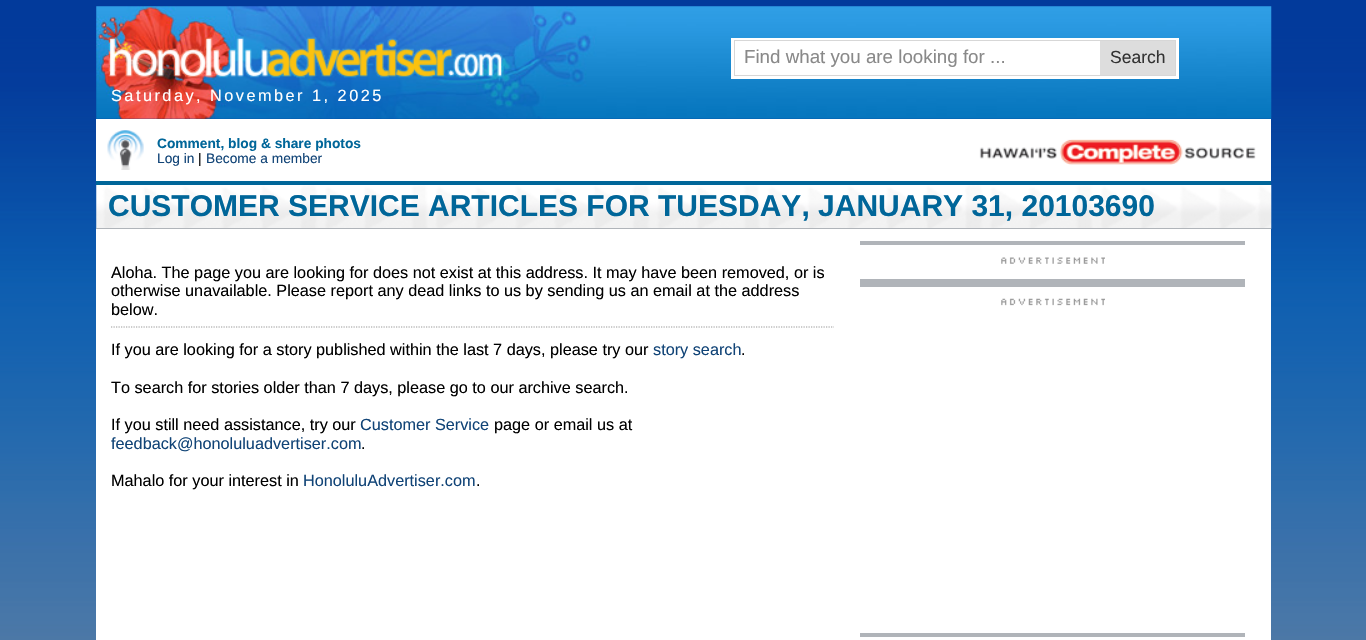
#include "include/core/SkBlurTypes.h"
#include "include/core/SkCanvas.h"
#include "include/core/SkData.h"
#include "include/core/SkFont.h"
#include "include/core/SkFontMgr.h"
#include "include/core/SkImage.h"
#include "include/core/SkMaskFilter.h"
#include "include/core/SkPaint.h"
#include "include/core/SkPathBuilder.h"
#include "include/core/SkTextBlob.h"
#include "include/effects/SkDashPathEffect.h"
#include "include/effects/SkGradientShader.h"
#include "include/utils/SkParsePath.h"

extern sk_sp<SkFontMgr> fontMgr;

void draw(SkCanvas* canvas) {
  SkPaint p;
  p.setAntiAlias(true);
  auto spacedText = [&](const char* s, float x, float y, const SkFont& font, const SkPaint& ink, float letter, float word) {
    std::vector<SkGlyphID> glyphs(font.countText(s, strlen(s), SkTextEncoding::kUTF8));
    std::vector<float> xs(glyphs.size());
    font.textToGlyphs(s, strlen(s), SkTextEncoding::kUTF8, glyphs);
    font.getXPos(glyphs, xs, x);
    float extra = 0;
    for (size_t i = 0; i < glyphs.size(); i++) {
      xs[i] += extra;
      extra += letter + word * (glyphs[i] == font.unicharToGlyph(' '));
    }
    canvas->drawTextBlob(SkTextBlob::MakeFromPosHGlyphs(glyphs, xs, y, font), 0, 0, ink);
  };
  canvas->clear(SK_ColorWHITE);
  canvas->drawImageRect(SkImages::DeferredFromEncodedData(SkData::MakeFromFileName("images/1.png")), SkRect::MakeLTRB(0, 0, 1366, 640), SkSamplingOptions());
  canvas->drawImageRect(SkImages::DeferredFromEncodedData(SkData::MakeFromFileName("images/2.png")), SkRect::MakeLTRB(96, 6, 1272, 119), SkSamplingOptions());
  canvas->drawImageRect(SkImages::DeferredFromEncodedData(SkData::MakeFromFileName("images/3.png")), SkRect::MakeLTRB(108, 37, 503, 78), SkSamplingOptions());
  p.setColor(SK_ColorWHITE);
  canvas->drawRect(SkRect::MakeLTRB(731, 38, 1179, 79), p);
  p.setStyle(SkPaint::kStroke_Style);
  p.setStrokeWidth(1);
  p.setColor(SkColorSetRGB(215, 215, 215));
  canvas->drawRect(SkRect::MakeLTRB(734.5f, 40.5f, 1175.5f, 75.5f), p);
  p.setStyle(SkPaint::kFill_Style);
  p.setColor(SkColorSetRGB(221, 221, 221));
  canvas->drawRect(SkRect::MakeLTRB(1100, 41, 1175, 75), p);
  p.setColor(SK_ColorWHITE);
  canvas->drawRect(SkRect::MakeLTRB(96, 119, 1271, 181), p);
  p.setColor(SkColorSetRGB(0, 102, 153));
  canvas->drawRect(SkRect::MakeLTRB(96, 181, 1271, 185), p);
  canvas->drawImageRect(SkImages::DeferredFromEncodedData(SkData::MakeFromFileName("images/4.png")), SkRect::MakeLTRB(107, 130, 144, 170), SkSamplingOptions());
  canvas->drawImageRect(SkImages::DeferredFromEncodedData(SkData::MakeFromFileName("images/5.png")), SkRect::MakeLTRB(979, 139, 1256, 165), SkSamplingOptions());
  canvas->drawImageRect(SkImages::DeferredFromEncodedData(SkData::MakeFromFileName("images/6.png")), SkRect::MakeLTRB(96, 185, 1272, 229), SkSamplingOptions());
  p.setColor(SkColorSetRGB(176, 180, 185));
  canvas->drawRect(SkRect::MakeLTRB(96, 228, 1271, 229), p);
  p.setColor(SK_ColorWHITE);
  canvas->drawRect(SkRect::MakeLTRB(96, 229, 1271, 640), p);
  p.setStyle(SkPaint::kStroke_Style);
  p.setStrokeWidth(1.2f);
  p.setColor(SkColorSetRGB(153, 153, 153));
  p.setPathEffect(SkDashPathEffect::Make({{1.25f, 1.25f}}, 0));
  canvas->drawPath(SkPathBuilder().moveTo(111, 327).lineTo(834, 327).detach(), p);
  p.setPathEffect(nullptr);
  p.setStyle(SkPaint::kFill_Style);
  p.setColor(SkColorSetRGB(176, 180, 185));
  canvas->drawRect(SkRect::MakeLTRB(860, 241, 1245, 245), p);
  canvas->drawRect(SkRect::MakeLTRB(860, 279, 1245, 287), p);
  canvas->drawImageRect(SkImages::DeferredFromEncodedData(SkData::MakeFromFileName("images/7.png")), SkRect::MakeLTRB(1001, 257, 1105, 264), SkSamplingOptions());
  canvas->drawRect(SkRect::MakeLTRB(860, 633, 1245, 637), p);
  canvas->drawImageRect(SkImages::DeferredFromEncodedData(SkData::MakeFromFileName("images/8.png")), SkRect::MakeLTRB(1001, 298, 1105, 306), SkSamplingOptions());
  SkFont font1(fontMgr->matchFamilyStyle("Liberation Sans", SkFontStyle::Normal()), 18.75f);
  font1.setSubpixel(true);
  p.setColor(SkColorSetRGB(137, 137, 137));
  canvas->drawString("Find what you are looking for ...", 744, 63, font1, p);
  SkFont font2(fontMgr->matchFamilyStyle("Liberation Sans", SkFontStyle::Normal()), 17.5f);
  font2.setSubpixel(true);
  p.setColor(SkColorSetRGB(51, 51, 51));
  canvas->drawString("Search", 1110, 63, font2, p);
  SkFont font3(fontMgr->matchFamilyStyle("Liberation Sans", SkFontStyle::Normal()), 16.25f);
  font3.setSubpixel(true);
  p.setColor(SK_ColorWHITE);
  spacedText("Saturday, November 1, 2025", 111, 101, font3, p, 2.5f, 0);
  SkFont font4(fontMgr->matchFamilyStyle("Liberation Sans", SkFontStyle::Bold()), 13.75f);
  font4.setSubpixel(true);
  p.setColor(SkColorSetRGB(0, 102, 153));
  canvas->drawString("Comment, blog & share photos", 157, 148, font4, p);
  SkFont font5(fontMgr->matchFamilyStyle("Liberation Sans", SkFontStyle::Normal()), 13.75f);
  font5.setSubpixel(true);
  p.setColor(SkColorSetRGB(17, 68, 119));
  canvas->drawString("Log in", 157, 163, font5, p);
  p.setColor(SK_ColorBLACK);
  canvas->drawString("|", 198, 163, font5, p);
  p.setColor(SkColorSetRGB(17, 68, 119));
  canvas->drawString("Become a member", 206, 163, font5, p);
  SkFont font6(fontMgr->matchFamilyStyle("Liberation Sans", SkFontStyle::Bold()), 30);
  font6.setSubpixel(true);
  p.setColor(SkColorSetRGB(0, 102, 153));
  canvas->drawString("CUSTOMER SERVICE ARTICLES FOR TUESDAY, JANUARY 31, 20103690", 108, 216, font6, p);
  p.setColor(SK_ColorBLACK);
  canvas->drawString("Aloha. The page you are looking for does not exist at this address. It may have been removed, or is", 111, 278, font3, p);
  canvas->drawString("otherwise unavailable. Please report any dead links to us by sending us an email at the address", 111, 296, font3, p);
  canvas->drawString("below.", 111, 315, font3, p);
  canvas->drawString("If you are looking for a story published within the last 7 days, please try our", 111, 355, font3, p);
  p.setColor(SkColorSetRGB(17, 68, 119));
  canvas->drawString("story search", 653, 355, font3, p);
  p.setColor(SK_ColorBLACK);
  canvas->drawString(".", 741, 355, font3, p);
  canvas->drawString("To search for stories older than 7 days, please go to our archive search.", 111, 393, font3, p);
  canvas->drawString("If you still need assistance, try our", 111, 430, font3, p);
  p.setColor(SkColorSetRGB(17, 68, 119));
  canvas->drawString("Customer Service", 360, 430, font3, p);
  p.setColor(SK_ColorBLACK);
  canvas->drawString("page or email us at", 494, 430, font3, p);
  p.setColor(SkColorSetRGB(17, 68, 119));
  canvas->drawString("feedback@honoluluadvertiser.com", 111, 449, font3, p);
  p.setColor(SK_ColorBLACK);
  canvas->drawString(".", 361, 449, font3, p);
  canvas->drawString("Mahalo for your interest in", 111, 486, font3, p);
  p.setColor(SkColorSetRGB(17, 68, 119));
  canvas->drawString("HonoluluAdvertiser.com", 303, 486, font3, p);
  p.setColor(SK_ColorBLACK);
  canvas->drawString(".", 476, 486, font3, p);
}
